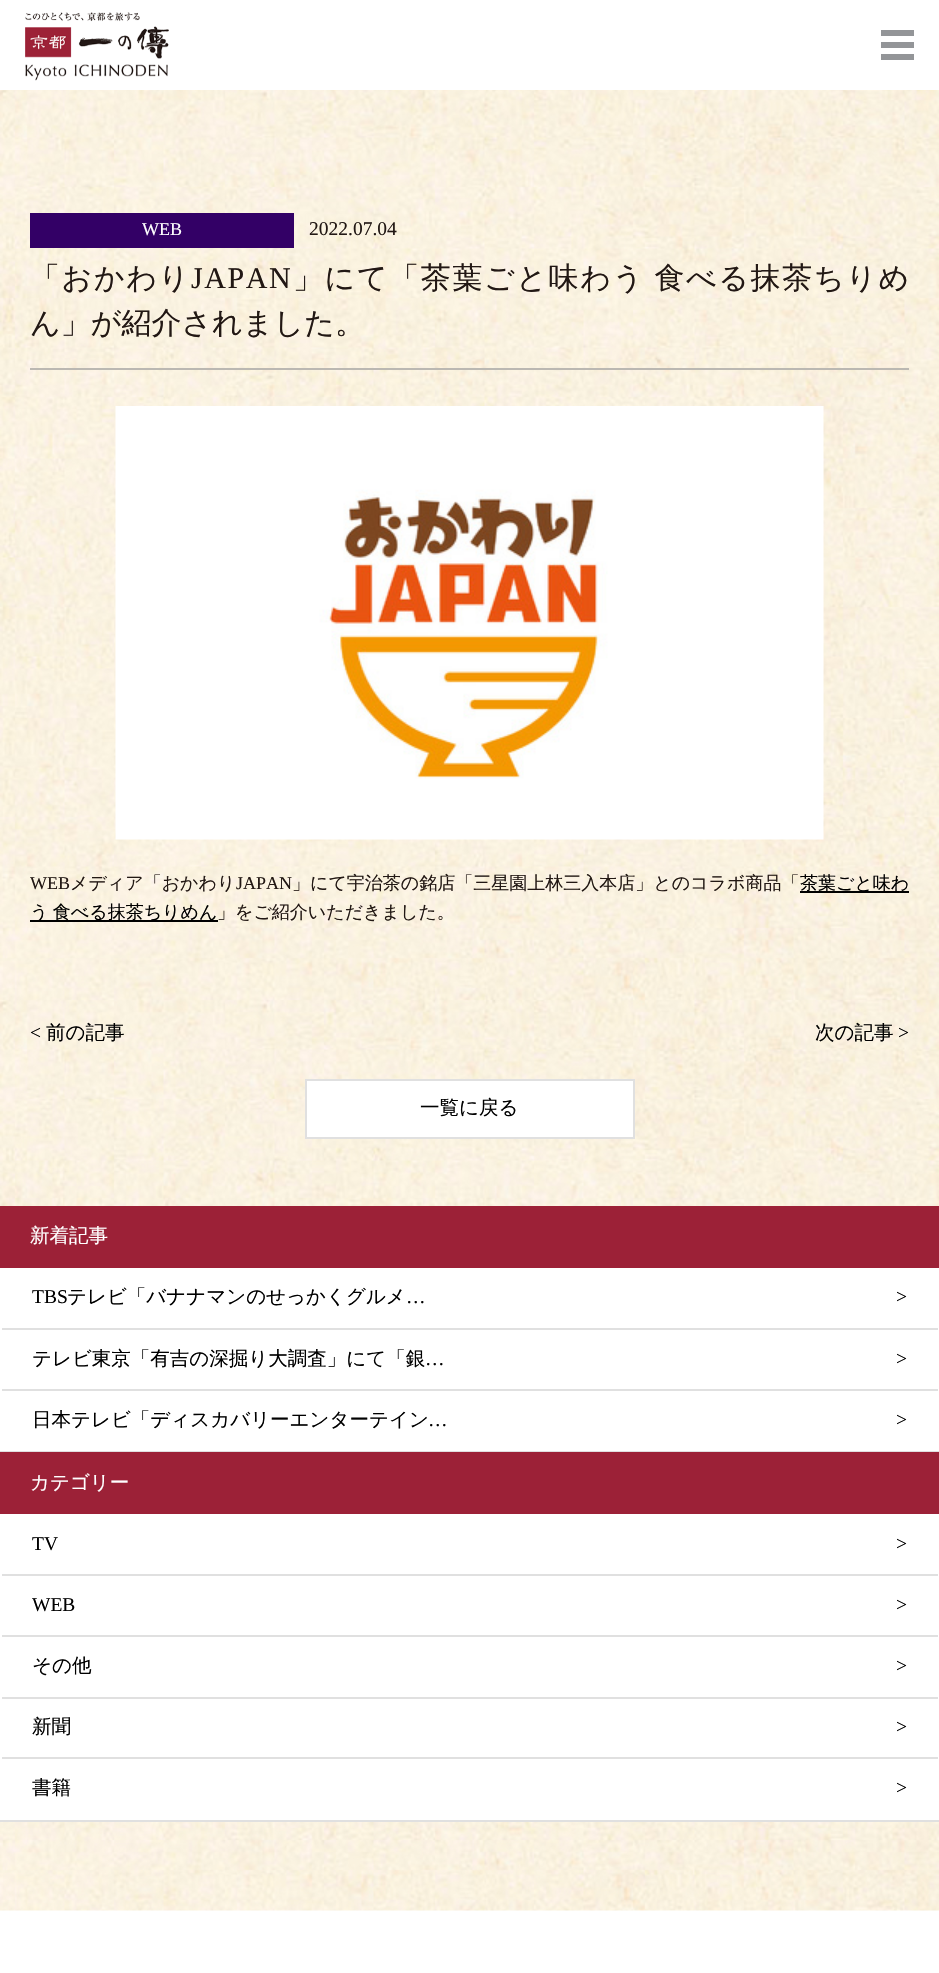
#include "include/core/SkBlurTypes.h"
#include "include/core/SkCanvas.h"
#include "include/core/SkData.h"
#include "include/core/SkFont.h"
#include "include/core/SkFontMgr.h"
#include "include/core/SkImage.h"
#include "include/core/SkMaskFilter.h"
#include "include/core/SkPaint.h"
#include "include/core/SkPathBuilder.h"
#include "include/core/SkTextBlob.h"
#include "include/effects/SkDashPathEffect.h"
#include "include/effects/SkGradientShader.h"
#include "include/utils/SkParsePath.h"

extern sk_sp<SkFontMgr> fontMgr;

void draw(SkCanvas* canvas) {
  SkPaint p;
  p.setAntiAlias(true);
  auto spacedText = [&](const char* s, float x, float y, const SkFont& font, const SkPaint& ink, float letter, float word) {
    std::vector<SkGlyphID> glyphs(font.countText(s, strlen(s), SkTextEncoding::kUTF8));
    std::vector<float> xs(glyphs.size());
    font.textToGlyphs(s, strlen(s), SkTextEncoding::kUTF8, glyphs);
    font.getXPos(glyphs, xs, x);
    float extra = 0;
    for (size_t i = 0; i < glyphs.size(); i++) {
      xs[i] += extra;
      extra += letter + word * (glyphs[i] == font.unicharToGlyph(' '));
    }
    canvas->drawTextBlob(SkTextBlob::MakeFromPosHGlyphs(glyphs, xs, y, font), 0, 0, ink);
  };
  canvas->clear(SK_ColorWHITE);
  canvas->drawImageRect(SkImages::DeferredFromEncodedData(SkData::MakeFromFileName("images/1.png")), SkRect::MakeLTRB(25, 12, 169, 81), SkSamplingOptions());
  p.setColor(SkColorSetRGB(147, 149, 152));
  canvas->drawRect(SkRect::MakeLTRB(881, 30, 914, 36), p);
  canvas->drawRect(SkRect::MakeLTRB(881, 42, 914, 48), p);
  canvas->drawRect(SkRect::MakeLTRB(881, 54, 914, 60), p);
  canvas->drawImageRect(SkImages::DeferredFromEncodedData(SkData::MakeFromFileName("images/2.png")), SkRect::MakeLTRB(0, 90, 939, 1911), SkSamplingOptions());
  p.setColor(SkColorSetRGB(187, 184, 178));
  canvas->drawRect(SkRect::MakeLTRB(30, 368, 909, 370), p);
  p.setColor(SkColorSetRGB(51, 0, 102));
  canvas->drawRect(SkRect::MakeLTRB(30, 213, 294, 248), p);
  canvas->drawImageRect(SkImages::DeferredFromEncodedData(SkData::MakeFromFileName("images/3.png")), SkRect::MakeLTRB(115, 406, 824, 840), SkSamplingOptions());
  p.setColor(SK_ColorBLACK);
  canvas->drawRect(SkRect::MakeLTRB(800, 891, 909, 893), p);
  canvas->drawRect(SkRect::MakeLTRB(30, 920, 218, 922), p);
  p.setColor(SK_ColorWHITE);
  canvas->drawRect(SkRect::MakeLTRB(306, 1080, 634, 1138), p);
  p.setStyle(SkPaint::kStroke_Style);
  p.setStrokeWidth(2);
  p.setColor(SkColorSetRGB(224, 224, 224));
  canvas->drawRect(SkRect::MakeLTRB(306, 1080, 634, 1138), p);
  p.setStyle(SkPaint::kFill_Style);
  p.setColor(SkColorSetRGB(156, 33, 55));
  canvas->drawRect(SkRect::MakeLTRB(0, 1206, 939, 1268), p);
  p.setColor(SK_ColorWHITE);
  canvas->drawRect(SkRect::MakeLTRB(0, 1268, 939, 1451), p);
  p.setColor(SkColorSetRGB(224, 224, 224));
  canvas->drawRect(SkRect::MakeLTRB(0, 1451, 939, 1452), p);
  canvas->drawRect(SkRect::MakeLTRB(2, 1328, 938, 1330), p);
  canvas->drawRect(SkRect::MakeLTRB(2, 1389, 938, 1391), p);
  p.setColor(SkColorSetRGB(156, 33, 55));
  canvas->drawRect(SkRect::MakeLTRB(0, 1452, 939, 1514), p);
  p.setColor(SK_ColorWHITE);
  canvas->drawRect(SkRect::MakeLTRB(0, 1514, 939, 1820), p);
  p.setColor(SkColorSetRGB(224, 224, 224));
  canvas->drawRect(SkRect::MakeLTRB(0, 1820, 939, 1822), p);
  canvas->drawRect(SkRect::MakeLTRB(2, 1574, 938, 1576), p);
  canvas->drawRect(SkRect::MakeLTRB(2, 1635, 938, 1637), p);
  canvas->drawRect(SkRect::MakeLTRB(2, 1697, 938, 1699), p);
  canvas->drawRect(SkRect::MakeLTRB(2, 1757, 938, 1759), p);
  SkFont font1(fontMgr->matchFamilyStyle("Liberation Serif", SkFontStyle::Normal()), 18);
  font1.setSubpixel(true);
  p.setColor(SK_ColorWHITE);
  canvas->drawString("WEB", 142, 235, font1, p);
  SkFont font2(fontMgr->matchFamilyStyle("Liberation Serif", SkFontStyle::Normal()), 19.5f);
  font2.setSubpixel(true);
  p.setColor(SkColorSetRGB(34, 24, 20));
  canvas->drawString("2022.07.04", 309, 235, font2, p);
  SkFont font3(fontMgr->matchFamilyStyle("WenQuanYi Zen Hei", SkFontStyle(500, SkFontStyle::kNormal_Width, SkFontStyle::kUpright_Slant)), 30);
  font3.setSubpixel(true);
  spacedText("「おかわり", 30, 288, font3, p, 1.6f, 0);
  SkFont font4(fontMgr->matchFamilyStyle("Liberation Serif", SkFontStyle::Normal()), 30);
  font4.setSubpixel(true);
  spacedText("JAPAN", 191, 288, font4, p, 1.6f, 0);
  spacedText("」にて「茶葉ごと味わう 食べる抹茶ちりめ", 293, 288, font3, p, 1.6f, -1);
  canvas->drawString("ん」が紹介されました。", 30, 333, font3, p);
  canvas->drawString("WEB", 30, 889, font1, p);
  SkFont font5(fontMgr->matchFamilyStyle("WenQuanYi Zen Hei", SkFontStyle(500, SkFontStyle::kNormal_Width, SkFontStyle::kUpright_Slant)), 18);
  font5.setSubpixel(true);
  canvas->drawString("メディア「おかわり", 70, 889, font5, p);
  canvas->drawString("JAPAN", 236, 889, font1, p);
  canvas->drawString("」にて宇治茶の銘店「三星園上林三入本店」とのコラボ商品「", 292, 889, font5, p);
  p.setColor(SK_ColorBLACK);
  canvas->drawString("茶葉ごと味わ", 800, 889, font5, p);
  spacedText("う 食べる抹茶ちりめん", 30, 918, font5, p, 0, -1);
  p.setColor(SkColorSetRGB(34, 24, 20));
  canvas->drawString("」をご紹介いただきました。", 217, 918, font5, p);
  p.setColor(SK_ColorBLACK);
  canvas->drawString("<", 30, 1039, font2, p);
  SkFont font6(fontMgr->matchFamilyStyle("WenQuanYi Zen Hei", SkFontStyle(500, SkFontStyle::kNormal_Width, SkFontStyle::kUpright_Slant)), 19.5f);
  font6.setSubpixel(true);
  canvas->drawString("前の記事", 46, 1039, font6, p);
  canvas->drawString("次の記事", 815, 1039, font6, p);
  canvas->drawString(">", 898, 1039, font2, p);
  canvas->drawString("一覧に戻る", 420, 1114, font6, p);
  p.setColor(SK_ColorWHITE);
  canvas->drawString("新着記事", 30, 1242, font6, p);
  p.setColor(SK_ColorBLACK);
  canvas->drawString("TBS", 32, 1303, font2, p);
  canvas->drawString("テレビ「バナナマンのせっかくグルメ", 67, 1303, font6, p);
  canvas->drawString(">", 896, 1303, font2, p);
  canvas->drawString("…", 406, 1303, font2, p);
  canvas->drawString("テレビ東京「有吉の深掘り大調査」にて「銀", 32, 1365, font6, p);
  canvas->drawString(">", 896, 1365, font2, p);
  canvas->drawString("…", 425, 1365, font2, p);
  canvas->drawString("日本テレビ「ディスカバリーエンターテイン", 32, 1426, font6, p);
  canvas->drawString(">", 896, 1426, font2, p);
  canvas->drawString("…", 428, 1426, font2, p);
  p.setColor(SK_ColorWHITE);
  canvas->drawString("カテゴリー", 30, 1489, font6, p);
  p.setColor(SK_ColorBLACK);
  canvas->drawString("TV", 32, 1550, font2, p);
  canvas->drawString(">", 896, 1550, font2, p);
  canvas->drawString("WEB", 32, 1611, font2, p);
  canvas->drawString(">", 896, 1611, font2, p);
  canvas->drawString("その他", 32, 1672, font6, p);
  canvas->drawString(">", 896, 1672, font2, p);
  canvas->drawString("新聞", 32, 1733, font6, p);
  canvas->drawString(">", 896, 1733, font2, p);
  canvas->drawString("書籍", 32, 1794, font6, p);
  canvas->drawString(">", 896, 1794, font2, p);
}
